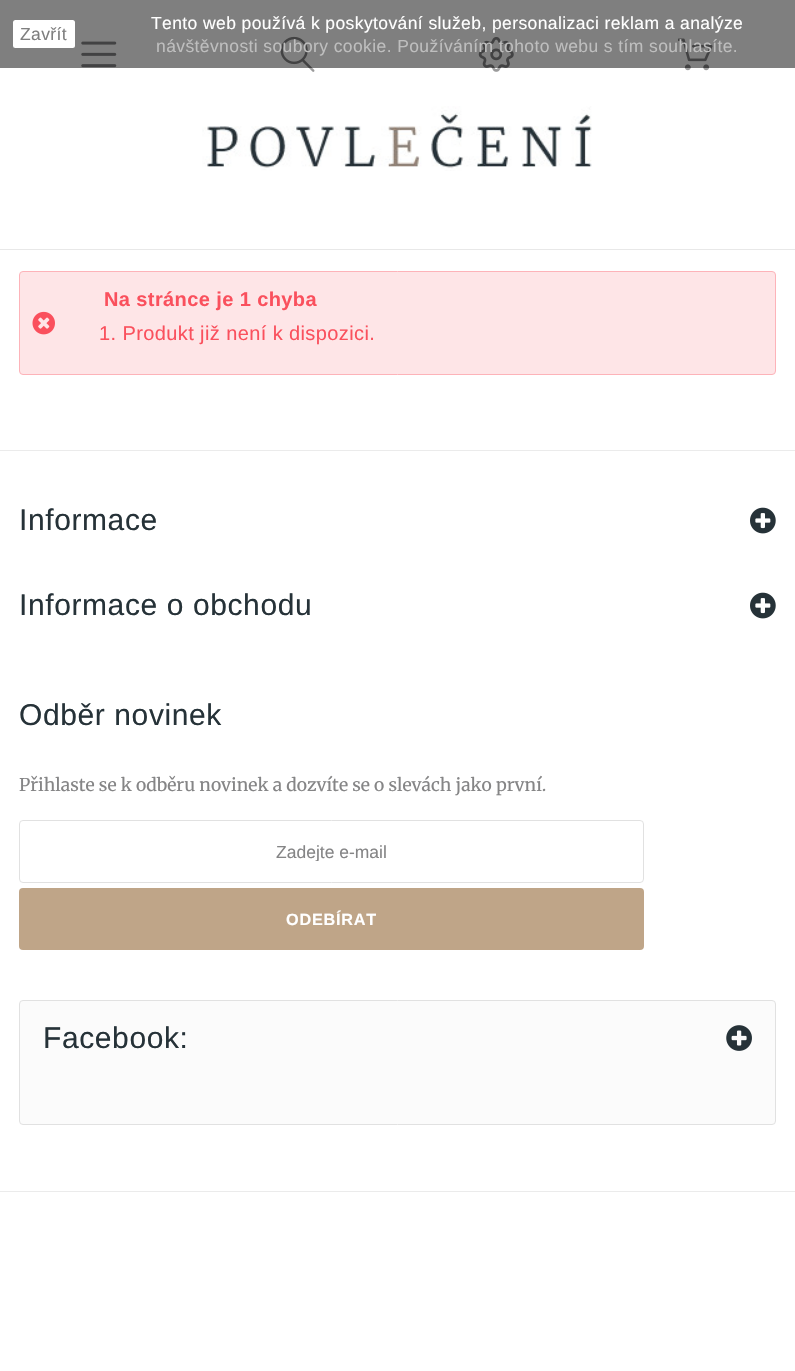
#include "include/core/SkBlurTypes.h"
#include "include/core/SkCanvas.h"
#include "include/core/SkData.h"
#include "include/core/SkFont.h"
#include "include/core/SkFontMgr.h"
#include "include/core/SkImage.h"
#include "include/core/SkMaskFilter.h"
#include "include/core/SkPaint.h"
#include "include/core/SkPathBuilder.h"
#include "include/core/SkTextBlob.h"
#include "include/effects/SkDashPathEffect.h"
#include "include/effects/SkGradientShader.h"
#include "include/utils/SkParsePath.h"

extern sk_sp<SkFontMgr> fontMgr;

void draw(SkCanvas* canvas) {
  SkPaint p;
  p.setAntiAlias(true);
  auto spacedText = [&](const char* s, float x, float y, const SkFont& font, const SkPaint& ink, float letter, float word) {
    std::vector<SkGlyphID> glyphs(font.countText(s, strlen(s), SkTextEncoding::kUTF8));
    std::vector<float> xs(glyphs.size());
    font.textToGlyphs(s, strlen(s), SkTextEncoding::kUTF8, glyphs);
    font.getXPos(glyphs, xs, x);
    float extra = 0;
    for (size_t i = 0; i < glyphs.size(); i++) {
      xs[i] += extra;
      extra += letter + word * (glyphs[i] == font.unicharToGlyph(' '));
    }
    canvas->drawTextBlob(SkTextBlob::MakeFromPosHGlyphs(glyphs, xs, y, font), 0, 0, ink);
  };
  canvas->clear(SK_ColorWHITE);
  canvas->drawImageRect(SkImages::DeferredFromEncodedData(SkData::MakeFromFileName("images/1.png")), SkRect::MakeLTRB(81, 41, 117, 68), SkSamplingOptions());
  canvas->drawImageRect(SkImages::DeferredFromEncodedData(SkData::MakeFromFileName("images/2.png")), SkRect::MakeLTRB(280, 36, 315, 72), SkSamplingOptions());
  canvas->drawImageRect(SkImages::DeferredFromEncodedData(SkData::MakeFromFileName("images/3.png")), SkRect::MakeLTRB(678, 38, 713, 71), SkSamplingOptions());
  canvas->drawImageRect(SkImages::DeferredFromEncodedData(SkData::MakeFromFileName("images/5.png")), SkRect::MakeLTRB(478, 37, 514, 72), SkSamplingOptions());
  canvas->save();
  canvas->clipPath(SkPathBuilder(SkPathFillType::kEvenOdd).moveTo(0, 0).lineTo(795, 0).lineTo(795, 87).lineTo(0, 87).close().moveTo(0, 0).lineTo(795, 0).lineTo(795, 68).lineTo(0, 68).close().detach(), true);
  p.setColor(SkColorSetARGB(128, 255, 255, 255));
  p.setMaskFilter(SkMaskFilter::MakeBlur(kNormal_SkBlurStyle, 6));
  canvas->drawRect(SkRect::MakeLTRB(0, 0, 795, 68), p);
  p.setMaskFilter(nullptr);
  canvas->restore();
  p.setColor(SkColorSetARGB(128, 0, 0, 0));
  canvas->drawRect(SkRect::MakeLTRB(0, 0, 795, 68), p);
  p.setColor(SK_ColorWHITE);
  canvas->drawRoundRect(SkRect::MakeLTRB(13, 20, 75, 48), 2.5f, 2.5f, p);
  canvas->drawImageRect(SkImages::DeferredFromEncodedData(SkData::MakeFromFileName("images/4.png")), SkRect::MakeLTRB(202, 106, 592, 171), SkSamplingOptions());
  p.setColor(SkColorSetRGB(232, 232, 232));
  canvas->drawRect(SkRect::MakeLTRB(0, 249, 795, 250), p);
  p.setColor(SkColorSetRGB(254, 229, 231));
  canvas->drawRoundRect(SkRect::MakeLTRB(19.5f, 271.5f, 775.5f, 374.5f), 3.5f, 3.5f, p);
  p.setStyle(SkPaint::kStroke_Style);
  p.setStrokeWidth(1);
  p.setColor(SkColorSetRGB(253, 179, 185));
  canvas->drawRoundRect(SkRect::MakeLTRB(19.5f, 271.5f, 775.5f, 374.5f), 3.5f, 3.5f, p);
  canvas->drawImageRect(SkImages::DeferredFromEncodedData(SkData::MakeFromFileName("images/6.png")), SkRect::MakeLTRB(32, 311, 55, 335), SkSamplingOptions());
  p.setStyle(SkPaint::kFill_Style);
  p.setColor(SkColorSetRGB(235, 235, 235));
  canvas->drawRect(SkRect::MakeLTRB(0, 450, 795, 451), p);
  canvas->drawRect(SkRect::MakeLTRB(0, 1191, 795, 1192), p);
  canvas->drawImageRect(SkImages::DeferredFromEncodedData(SkData::MakeFromFileName("images/7.png")), SkRect::MakeLTRB(750, 507, 776, 534), SkSamplingOptions());
  canvas->drawImageRect(SkImages::DeferredFromEncodedData(SkData::MakeFromFileName("images/7.png")), SkRect::MakeLTRB(750, 592, 776, 619), SkSamplingOptions());
  p.setStyle(SkPaint::kStroke_Style);
  p.setColor(SkColorSetRGB(225, 225, 225));
  canvas->drawRoundRect(SkRect::MakeLTRB(19.5f, 820.5f, 643.5f, 882.5f), 3.5f, 3.5f, p);
  p.setStyle(SkPaint::kFill_Style);
  p.setColor(SkColorSetRGB(191, 165, 136));
  canvas->drawRoundRect(SkRect::MakeLTRB(19, 888, 644, 950), 4, 4, p);
  p.setColor(SkColorSetRGB(251, 251, 251));
  canvas->drawRoundRect(SkRect::MakeLTRB(19.5f, 1000.5f, 775.5f, 1124.5f), 3.5f, 3.5f, p);
  p.setStyle(SkPaint::kStroke_Style);
  p.setColor(SkColorSetRGB(225, 225, 225));
  canvas->drawRoundRect(SkRect::MakeLTRB(19.5f, 1000.5f, 775.5f, 1124.5f), 3.5f, 3.5f, p);
  canvas->drawImageRect(SkImages::DeferredFromEncodedData(SkData::MakeFromFileName("images/8.png")), SkRect::MakeLTRB(726, 1025, 752, 1051), SkSamplingOptions());
  SkFont font1(fontMgr->matchFamilyStyle("Liberation Sans", SkFontStyle::Normal()), 17.5f);
  font1.setSubpixel(true);
  p.setStyle(SkPaint::kFill_Style);
  p.setColor(SkColorSetRGB(127, 127, 127));
  spacedText("Zavřít", 20, 40, font1, p, 0.4f, 0);
  p.setColor(SK_ColorWHITE);
  spacedText("Tento web používá k poskytování služeb, personalizaci reklam a analýze", 151, 29, font1, p, 0.4f, 0);
  p.setColor(SkColorSetRGB(190, 190, 190));
  spacedText("návštěvnosti soubory cookie. Používáním tohoto webu s tím souhlasíte.", 156, 52, font1, p, 0.4f, 0);
  SkFont font2(fontMgr->matchFamilyStyle("Arimo", SkFontStyle::Bold()), 20);
  font2.setSubpixel(true);
  p.setColor(SkColorSetRGB(250, 80, 93));
  spacedText("Na stránce je 1 chyba", 104, 306, font2, p, 0.4f, 0);
  SkFont font3(fontMgr->matchFamilyStyle("Arimo", SkFontStyle::Normal()), 20);
  font3.setSubpixel(true);
  spacedText("1. Produkt již není k dispozici.", 99, 340, font3, p, 0.4f, 0);
  SkFont font4(fontMgr->matchFamilyStyle("Arimo", SkFontStyle::Normal()), 30);
  font4.setSubpixel(true);
  p.setColor(SkColorSetRGB(38, 50, 56));
  spacedText("Informace", 19, 530, font4, p, 0.6f, 0);
  spacedText("Informace o obchodu", 19, 615, font4, p, 0.6f, 0);
  spacedText("Odběr novinek", 19, 725, font4, p, 0.6f, 0);
  SkFont font5(fontMgr->matchFamilyStyle("Merriweather", SkFontStyle::Normal()), 17.5f);
  font5.setSubpixel(true);
  p.setColor(SkColorSetRGB(133, 133, 134));
  canvas->drawString("Přihlaste se k odběru novinek a dozvíte se o slevách jako první.", 19, 791, font5, p);
  canvas->save();
  canvas->clipRect(SkRect::MakeLTRB(35, 841, 628, 861));
  SkFont font6(fontMgr->matchFamilyStyle("Arimo", SkFontStyle::Normal()), 17.5f);
  font6.setSubpixel(true);
  canvas->drawString("Zadejte e-mail", 276, 858, font6, p);
  canvas->restore();
  SkFont font7(fontMgr->matchFamilyStyle("Arimo", SkFontStyle::Bold()), 16.25f);
  font7.setSubpixel(true);
  p.setColor(SK_ColorWHITE);
  spacedText("ODEBÍRAT", 286, 925, font7, p, 0.75f, 0);
  p.setColor(SkColorSetRGB(38, 50, 56));
  spacedText("Facebook:", 43, 1048, font4, p, 0.6f, 0);
}
